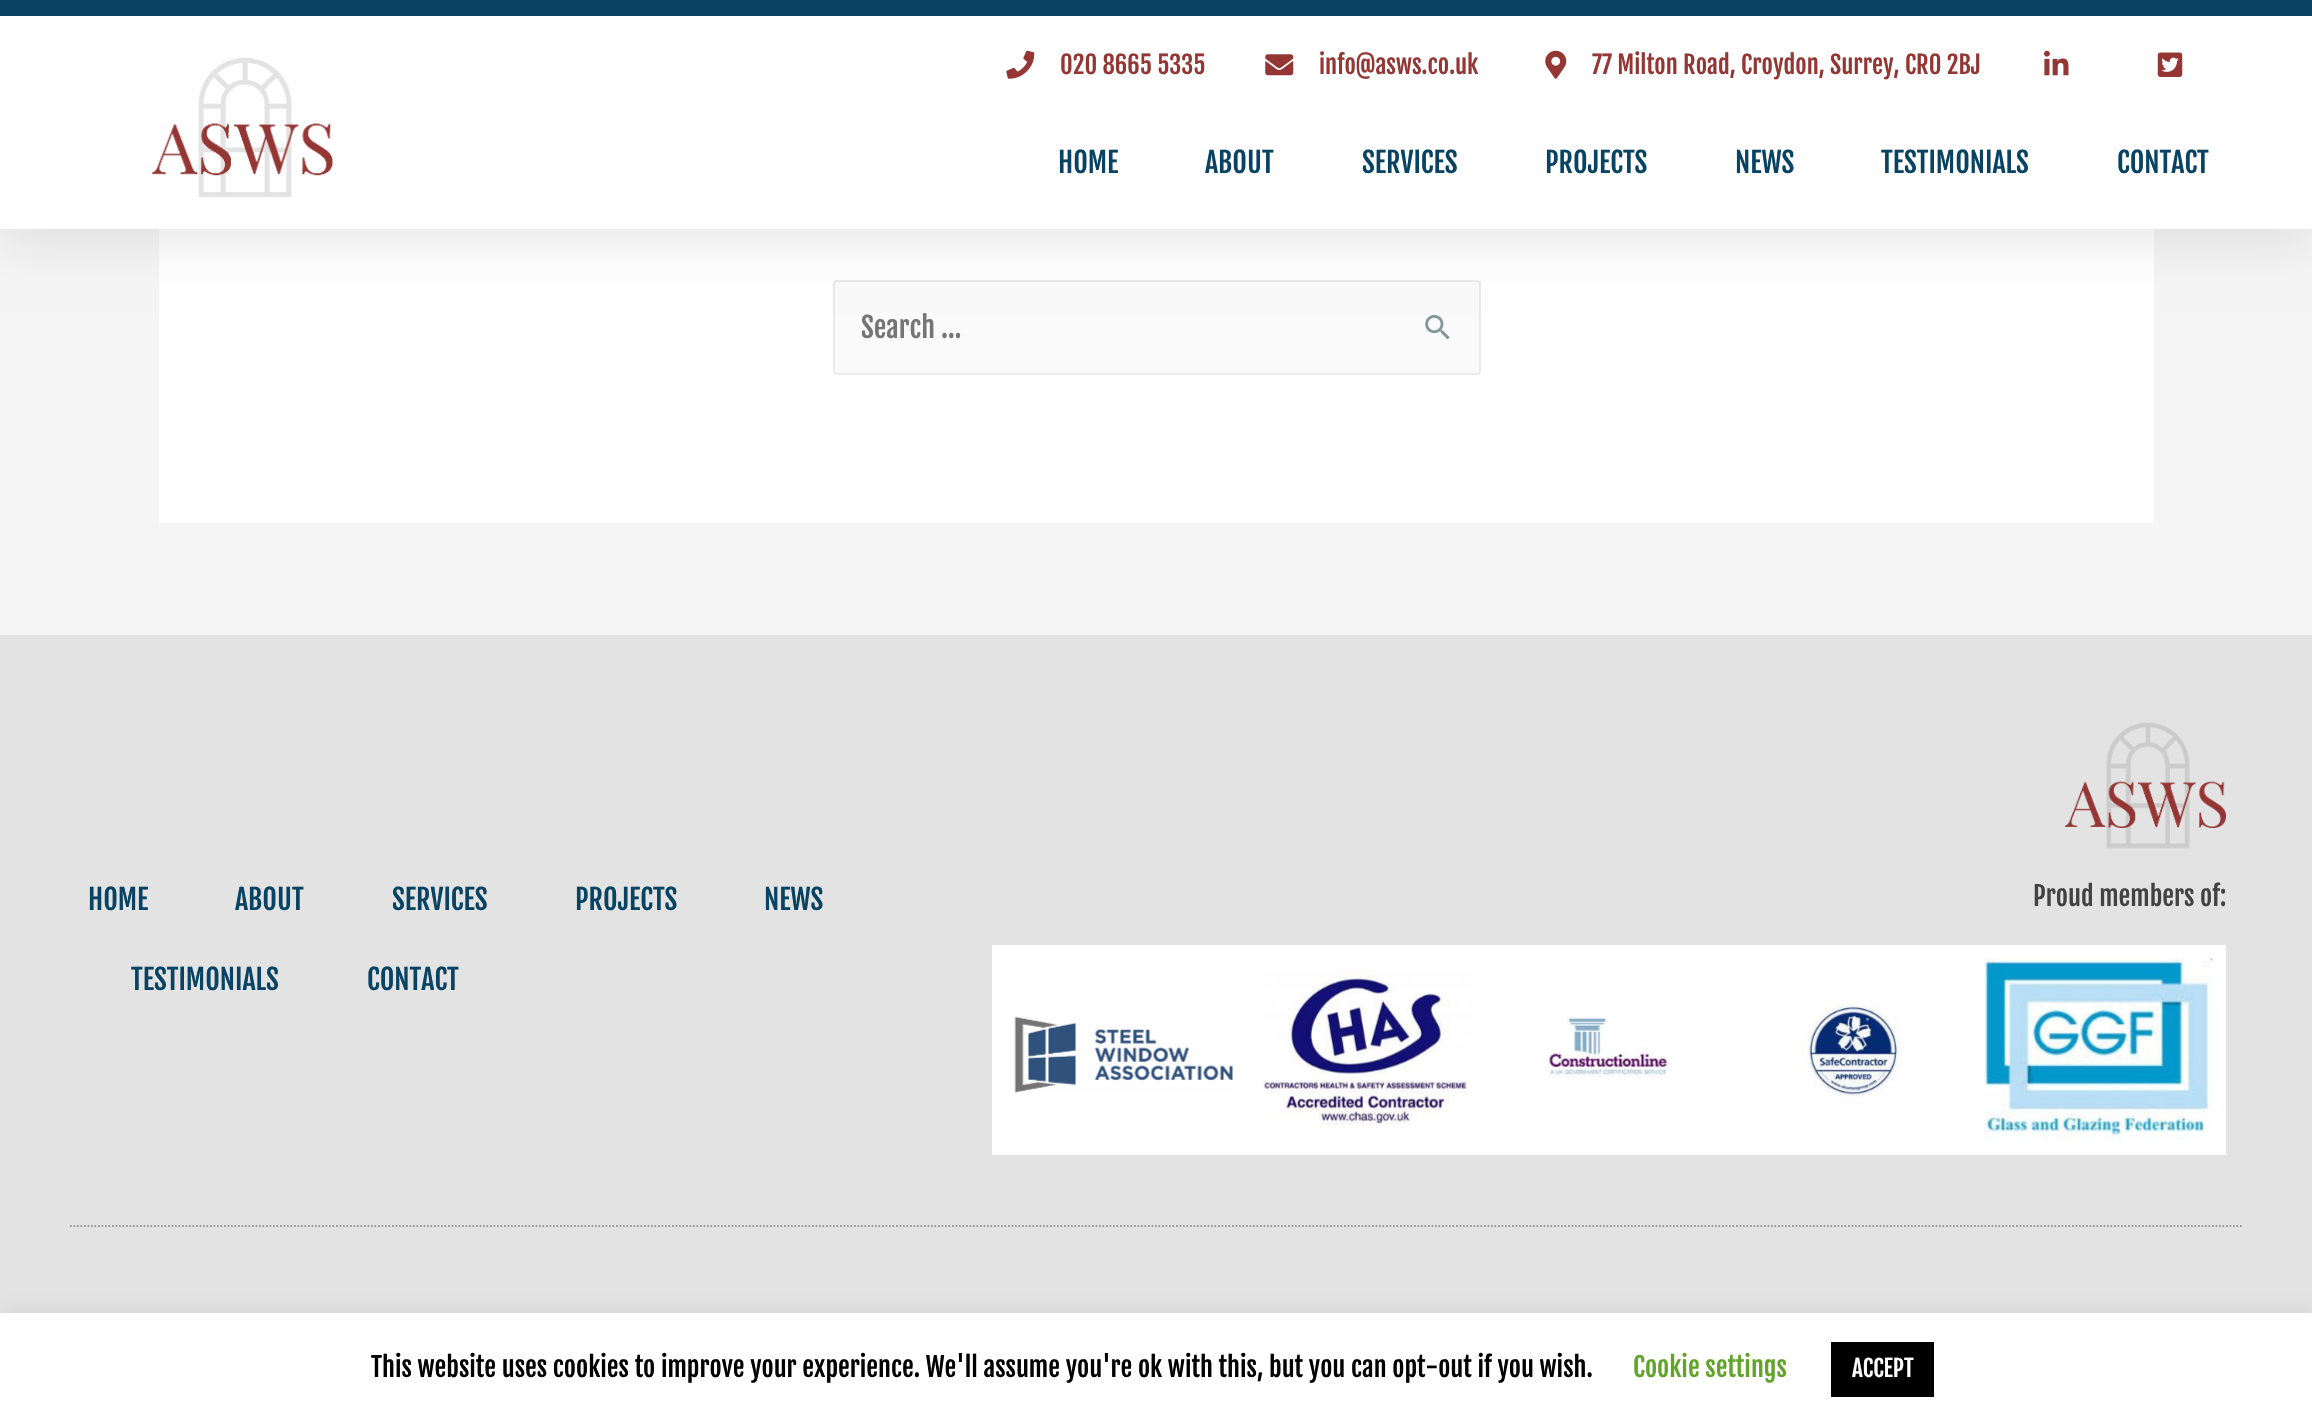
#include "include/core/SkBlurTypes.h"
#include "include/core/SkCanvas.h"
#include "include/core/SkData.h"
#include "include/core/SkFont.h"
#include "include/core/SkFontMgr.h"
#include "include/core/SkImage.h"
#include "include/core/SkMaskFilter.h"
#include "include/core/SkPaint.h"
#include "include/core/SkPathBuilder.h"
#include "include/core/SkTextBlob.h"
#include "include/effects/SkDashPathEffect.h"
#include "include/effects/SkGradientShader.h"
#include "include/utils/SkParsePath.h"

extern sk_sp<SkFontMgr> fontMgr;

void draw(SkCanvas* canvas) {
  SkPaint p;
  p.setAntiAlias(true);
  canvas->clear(SkColorSetRGB(245, 245, 245));
  p.setColor(SK_ColorWHITE);
  canvas->drawRect(SkRect::MakeLTRB(159, 229, 2154, 523), p);
  p.setColor(SkColorSetRGB(250, 250, 250));
  canvas->drawRoundRect(SkRect::MakeLTRB(834, 281, 1480, 374), 3, 3, p);
  p.setStyle(SkPaint::kStroke_Style);
  p.setStrokeWidth(2);
  p.setColor(SkColorSetRGB(234, 234, 234));
  canvas->drawRoundRect(SkRect::MakeLTRB(834, 281, 1480, 374), 3, 3, p);
  canvas->drawImageRect(SkImages::DeferredFromEncodedData(SkData::MakeFromFileName("images/7.png")), SkRect::MakeLTRB(1425, 314, 1450, 340), SkSamplingOptions());
  p.setStyle(SkPaint::kFill_Style);
  p.setColor(SkColorSetARGB(26, 0, 0, 0));
  p.setMaskFilter(SkMaskFilter::MakeBlur(kNormal_SkBlurStyle, 26));
  canvas->drawRect(SkRect::MakeLTRB(0, 9, 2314, 238), p);
  p.setMaskFilter(nullptr);
  p.setColor(SK_ColorWHITE);
  canvas->drawRect(SkRect::MakeLTRB(0, 16, 2312, 229), p);
  p.setColor(SkColorSetRGB(9, 67, 99));
  canvas->drawRect(SkRect::MakeLTRB(0, 0, 2312, 16), p);
  canvas->drawImageRect(SkImages::DeferredFromEncodedData(SkData::MakeFromFileName("images/1.png")), SkRect::MakeLTRB(151, 57, 333, 197), SkSamplingOptions());
  canvas->drawImageRect(SkImages::DeferredFromEncodedData(SkData::MakeFromFileName("images/2.png")), SkRect::MakeLTRB(1006, 50, 1035, 79), SkSamplingOptions());
  canvas->drawImageRect(SkImages::DeferredFromEncodedData(SkData::MakeFromFileName("images/3.png")), SkRect::MakeLTRB(1265, 54, 1294, 76), SkSamplingOptions());
  canvas->drawImageRect(SkImages::DeferredFromEncodedData(SkData::MakeFromFileName("images/4.png")), SkRect::MakeLTRB(1545, 50, 1567, 79), SkSamplingOptions());
  canvas->drawImageRect(SkImages::DeferredFromEncodedData(SkData::MakeFromFileName("images/5.png")), SkRect::MakeLTRB(2044, 50, 2069, 76), SkSamplingOptions());
  canvas->drawImageRect(SkImages::DeferredFromEncodedData(SkData::MakeFromFileName("images/6.png")), SkRect::MakeLTRB(2157, 52, 2183, 77), SkSamplingOptions());
  p.setColor(SkColorSetRGB(227, 227, 227));
  canvas->drawRect(SkRect::MakeLTRB(0, 635, 2312, 1313), p);
  p.setStyle(SkPaint::kStroke_Style);
  p.setStrokeWidth(1.8f);
  p.setColor(SkColorSetRGB(155, 155, 155));
  p.setPathEffect(SkDashPathEffect::Make({{1.75f, 1.75f}}, 0));
  canvas->drawPath(SkPathBuilder().moveTo(70, 1226).lineTo(2243.5f, 1226).detach(), p);
  p.setPathEffect(nullptr);
  canvas->drawImageRect(SkImages::DeferredFromEncodedData(SkData::MakeFromFileName("images/8.png")), SkRect::MakeLTRB(2065, 722, 2226, 849), SkSamplingOptions());
  p.setStyle(SkPaint::kFill_Style);
  p.setColor(SK_ColorWHITE);
  canvas->drawRect(SkRect::MakeLTRB(992, 945, 2226, 1155), p);
  canvas->drawImageRect(SkImages::DeferredFromEncodedData(SkData::MakeFromFileName("images/9.png")), SkRect::MakeLTRB(1014, 1016, 1233, 1093), SkSamplingOptions());
  canvas->drawImageRect(SkImages::DeferredFromEncodedData(SkData::MakeFromFileName("images/10.png")), SkRect::MakeLTRB(1263, 969, 1474, 1130), SkSamplingOptions());
  canvas->drawImageRect(SkImages::DeferredFromEncodedData(SkData::MakeFromFileName("images/11.png")), SkRect::MakeLTRB(1546, 1016, 1669, 1078), SkSamplingOptions());
  canvas->drawImageRect(SkImages::DeferredFromEncodedData(SkData::MakeFromFileName("images/12.png")), SkRect::MakeLTRB(1802, 1005, 1901, 1105), SkSamplingOptions());
  canvas->drawImageRect(SkImages::DeferredFromEncodedData(SkData::MakeFromFileName("images/13.png")), SkRect::MakeLTRB(1984, 958, 2213, 1140), SkSamplingOptions());
  p.setColor(SkColorSetARGB(77, 172, 171, 171));
  p.setMaskFilter(SkMaskFilter::MakeBlur(kNormal_SkBlurStyle, 9));
  canvas->drawRect(SkRect::MakeLTRB(0, 1311, 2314, 1425), p);
  p.setMaskFilter(nullptr);
  p.setColor(SK_ColorWHITE);
  canvas->drawRect(SkRect::MakeLTRB(0, 1313, 2312, 1426), p);
  p.setColor(SK_ColorBLACK);
  canvas->drawRect(SkRect::MakeLTRB(1831, 1342, 1934, 1397), p);
  SkFont font1(fontMgr->matchFamilyStyle("Fjalla One", SkFontStyle::Normal()), 24.5f);
  font1.setSubpixel(true);
  p.setColor(SkColorSetRGB(148, 54, 52));
  canvas->drawString("020 8665 5335", 1060, 74, font1, p);
  canvas->drawString("info@asws.co.uk", 1319, 74, font1, p);
  canvas->drawString("77 Milton Road, Croydon, Surrey, CR0 2BJ", 1592, 74, font1, p);
  SkFont font2(fontMgr->matchFamilyStyle("Fjalla One", SkFontStyle::Normal()), 28);
  font2.setSubpixel(true);
  p.setColor(SkColorSetRGB(9, 67, 99));
  canvas->drawString("HOME", 1058, 173, font2, p);
  canvas->drawString("ABOUT", 1205, 173, font2, p);
  canvas->drawString("SERVICES", 1362, 173, font2, p);
  canvas->drawString("PROJECTS", 1545, 173, font2, p);
  canvas->drawString("NEWS", 1735, 173, font2, p);
  canvas->drawString("TESTIMONIALS", 1881, 173, font2, p);
  canvas->drawString("CONTACT", 2117, 173, font2, p);
  p.setColor(SkColorSetRGB(117, 117, 117));
  canvas->drawString("Search …", 861, 338, font2, p);
  p.setColor(SkColorSetRGB(9, 67, 99));
  canvas->drawString("HOME", 88, 910, font2, p);
  canvas->drawString("ABOUT", 235, 910, font2, p);
  canvas->drawString("SERVICES", 392, 910, font2, p);
  canvas->drawString("PROJECTS", 575, 910, font2, p);
  canvas->drawString("NEWS", 764, 910, font2, p);
  canvas->drawString("TESTIMONIALS", 131, 990, font2, p);
  canvas->drawString("CONTACT", 367, 990, font2, p);
  SkFont font3(fontMgr->matchFamilyStyle("Fjalla One", SkFontStyle::Normal()), 26.25f);
  font3.setSubpixel(true);
  p.setColor(SkColorSetRGB(66, 66, 66));
  canvas->drawString("Proud members of:", 2033, 906, font3, p);
  p.setColor(SK_ColorBLACK);
  canvas->drawString("This website uses cookies to improve your experience. We'll assume you're ok with this, but you can opt-out if you wish.", 371, 1377, font3, p);
  p.setColor(SkColorSetRGB(98, 163, 41));
  canvas->drawString("Cookie settings", 1633, 1377, font3, p);
  SkFont font4(fontMgr->matchFamilyStyle("Fjalla One", SkFontStyle::Normal()), 23);
  font4.setSubpixel(true);
  p.setColor(SK_ColorWHITE);
  canvas->drawString("ACCEPT", 1852, 1377, font4, p);
}
